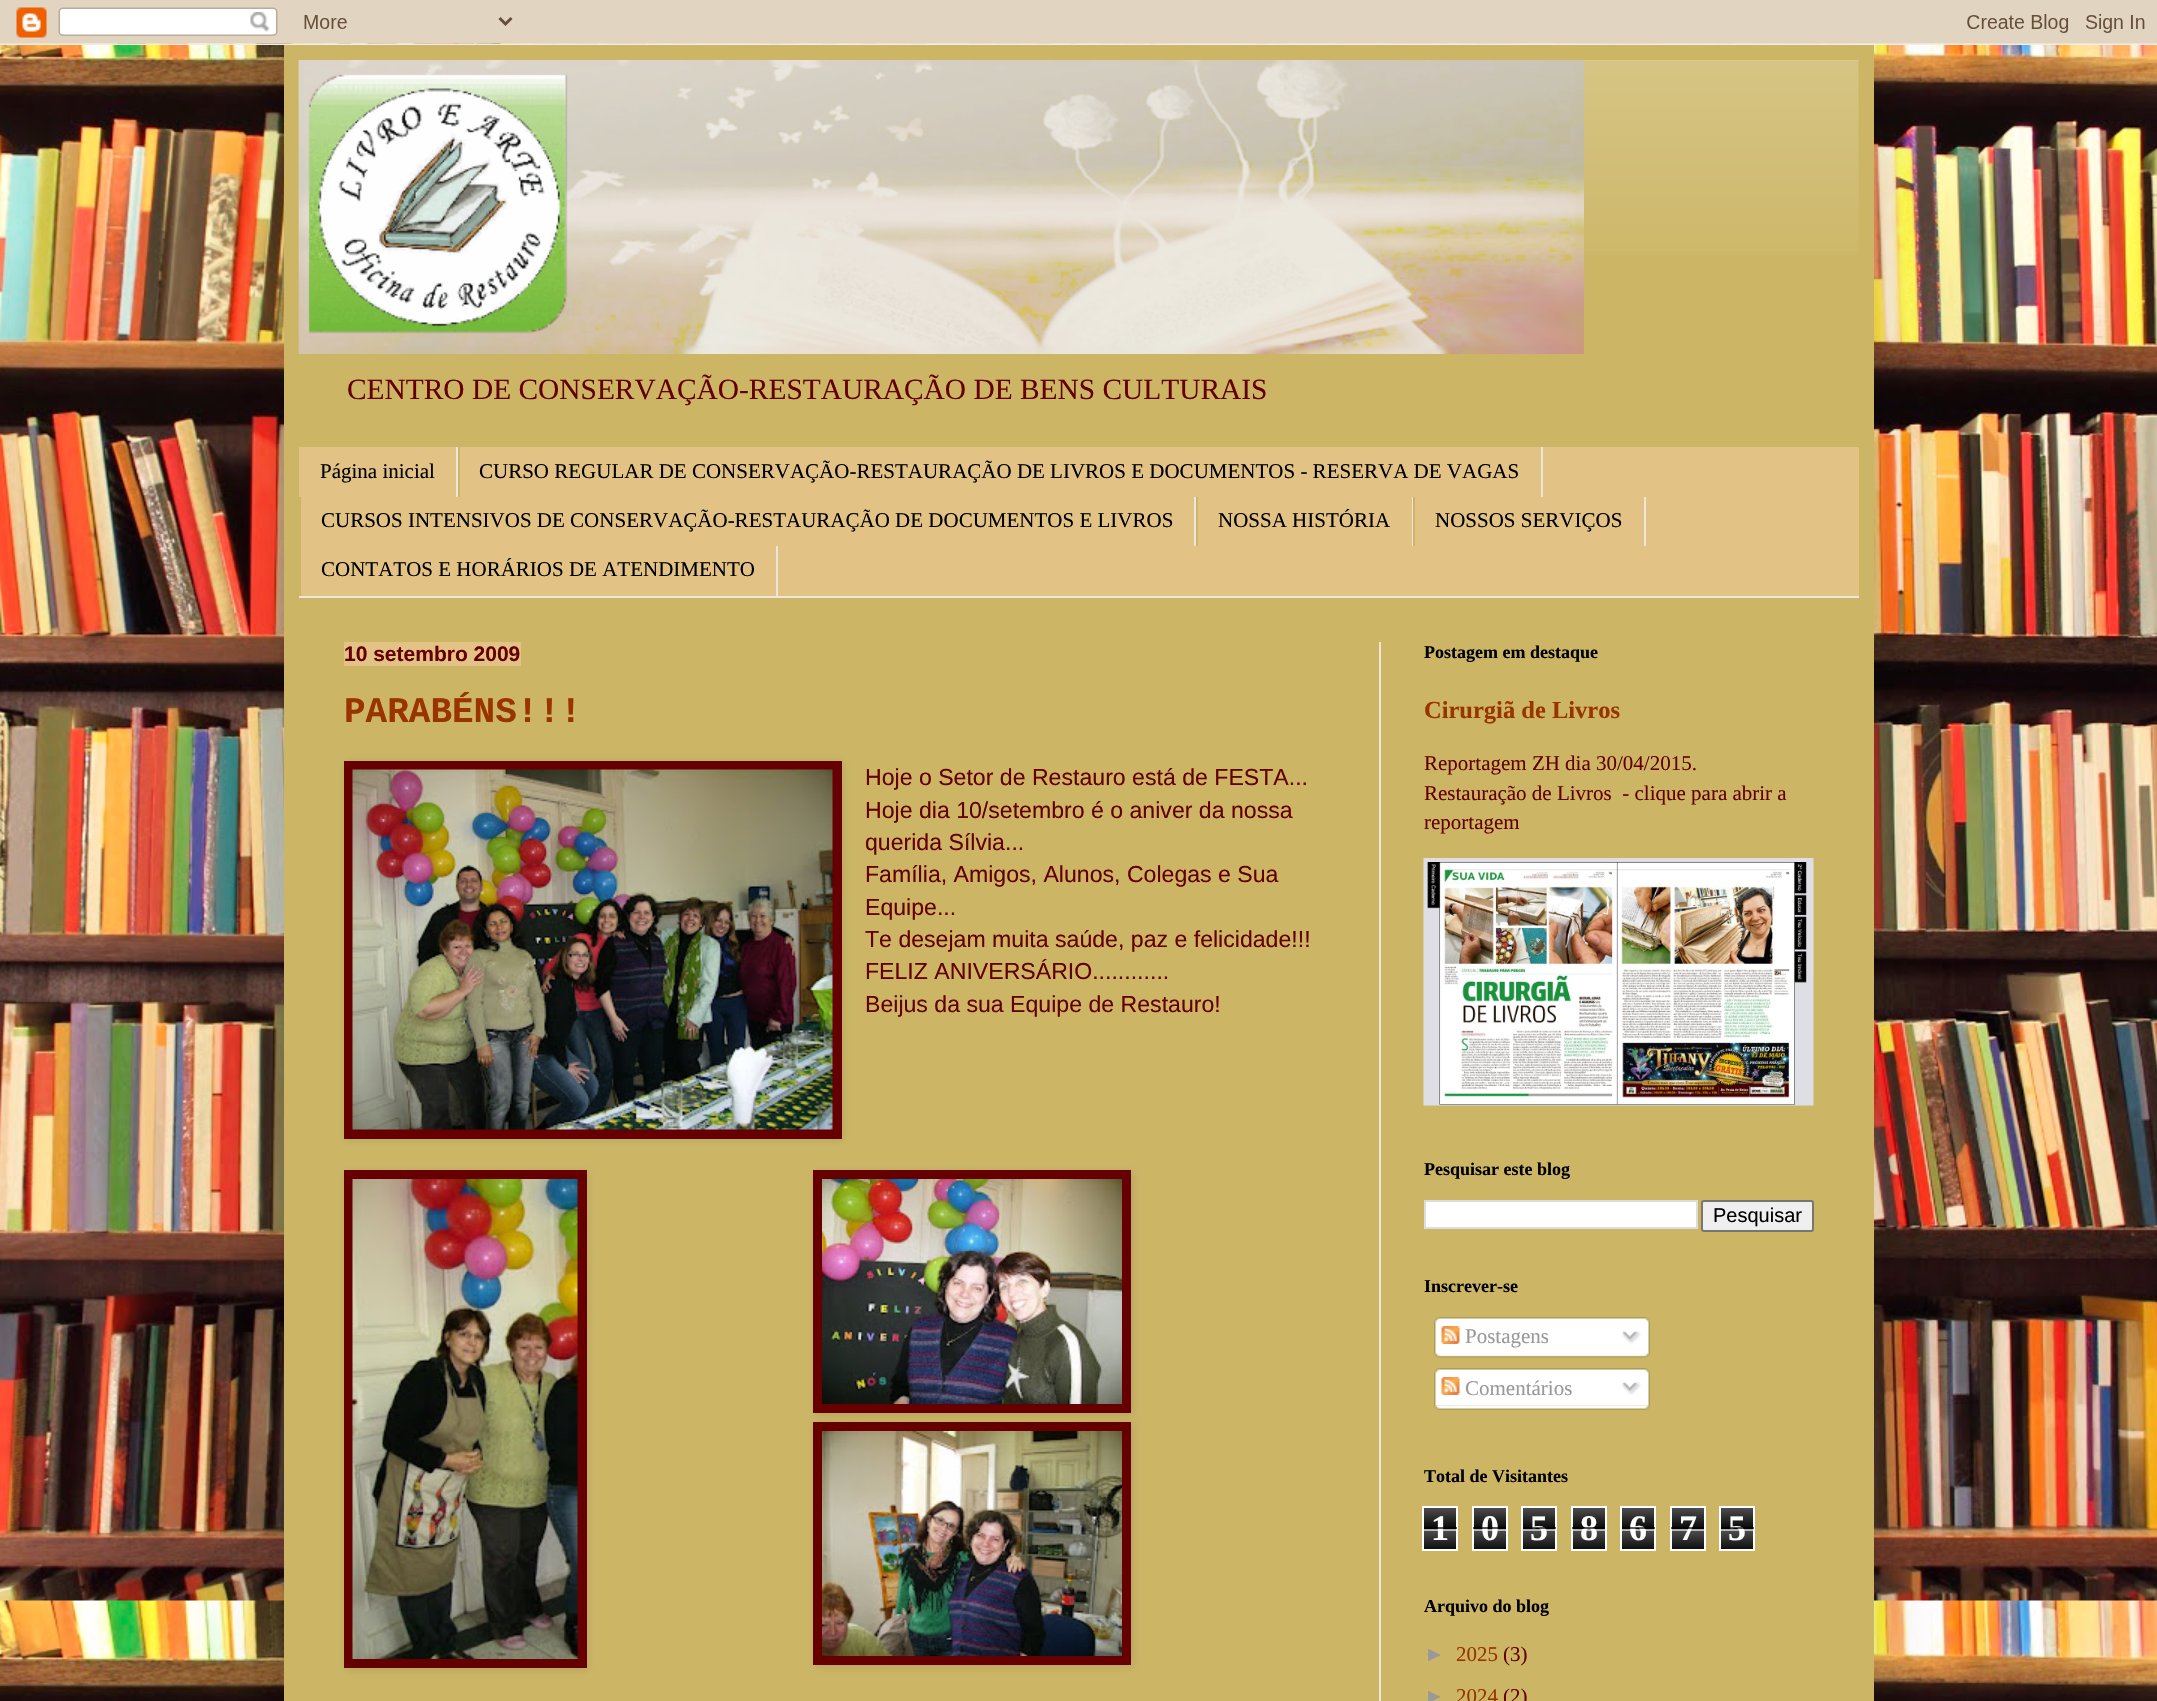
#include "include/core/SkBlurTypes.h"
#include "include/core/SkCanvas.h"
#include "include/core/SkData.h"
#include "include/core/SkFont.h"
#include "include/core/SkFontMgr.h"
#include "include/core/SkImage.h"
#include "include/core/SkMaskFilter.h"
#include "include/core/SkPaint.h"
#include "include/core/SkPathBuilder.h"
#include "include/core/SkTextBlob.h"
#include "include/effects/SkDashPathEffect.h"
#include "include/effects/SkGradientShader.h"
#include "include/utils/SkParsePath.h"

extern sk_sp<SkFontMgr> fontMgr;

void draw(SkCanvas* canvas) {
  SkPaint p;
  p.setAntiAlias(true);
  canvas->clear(SK_ColorWHITE);
  canvas->drawImageRect(SkImages::DeferredFromEncodedData(SkData::MakeFromFileName("images/1.png")), SkRect::MakeLTRB(0, 43, 2157, 1701), SkSamplingOptions());
  p.setColor(SkColorSetARGB(38, 0, 0, 0));
  p.setMaskFilter(SkMaskFilter::MakeBlur(kNormal_SkBlurStyle, 30));
  canvas->drawRect(SkRect::MakeLTRB(284, 45, 1874, 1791), p);
  p.setMaskFilter(nullptr);
  canvas->drawImageRect(SkImages::DeferredFromEncodedData(SkData::MakeFromFileName("images/2.png")), SkRect::MakeLTRB(0, 0, 2157, 45), SkSamplingOptions());
  p.setColor(SkColorSetRGB(204, 182, 102));
  canvas->drawRect(SkRect::MakeLTRB(284, 45, 1874, 1701), p);
  canvas->drawImageRect(SkImages::DeferredFromEncodedData(SkData::MakeFromFileName("images/3.png")), SkRect::MakeLTRB(298, 60, 1859, 255), SkSamplingOptions());
  canvas->drawImageRect(SkImages::DeferredFromEncodedData(SkData::MakeFromFileName("images/4.png")), SkRect::MakeLTRB(298, 60, 1584, 354), SkSamplingOptions());
  p.setColor(SkColorSetRGB(227, 194, 134));
  canvas->drawRect(SkRect::MakeLTRB(299, 447, 1859, 596), p);
  p.setColor(SkColorSetRGB(238, 229, 221));
  canvas->drawRect(SkRect::MakeLTRB(299, 596, 1859, 598), p);
  canvas->drawRect(SkRect::MakeLTRB(456, 447, 458, 497), p);
  canvas->drawRect(SkRect::MakeLTRB(1541, 447, 1543, 497), p);
  p.setColor(SkColorSetRGB(204, 182, 102));
  canvas->drawRect(SkRect::MakeLTRB(458, 447, 460, 497), p);
  p.setColor(SkColorSetRGB(238, 229, 221));
  canvas->drawRect(SkRect::MakeLTRB(1194, 497, 1196, 546), p);
  p.setColor(SkColorSetRGB(204, 182, 102));
  canvas->drawRect(SkRect::MakeLTRB(299, 497, 301, 596), p);
  p.setColor(SkColorSetRGB(238, 229, 221));
  canvas->drawRect(SkRect::MakeLTRB(1412, 497, 1413, 546), p);
  p.setColor(SkColorSetRGB(204, 182, 102));
  canvas->drawRect(SkRect::MakeLTRB(1196, 497, 1198, 546), p);
  p.setColor(SkColorSetRGB(238, 229, 221));
  canvas->drawRect(SkRect::MakeLTRB(1644, 497, 1646, 546), p);
  p.setColor(SkColorSetRGB(204, 182, 102));
  canvas->drawRect(SkRect::MakeLTRB(1413, 497, 1415, 546), p);
  p.setColor(SkColorSetRGB(238, 229, 221));
  canvas->drawRect(SkRect::MakeLTRB(776, 546, 778, 596), p);
  canvas->drawRect(SkRect::MakeLTRB(1379, 642, 1381, 1701), p);
  p.setColor(SkColorSetRGB(227, 194, 134));
  canvas->drawRect(SkRect::MakeLTRB(344, 642, 521, 666), p);
  p.setColor(SkColorSetARGB(26, 0, 0, 0));
  p.setMaskFilter(SkMaskFilter::MakeBlur(kNormal_SkBlurStyle, 4));
  canvas->drawRect(SkRect::MakeLTRB(345, 762, 843, 1140), p);
  p.setMaskFilter(nullptr);
  p.setColor(SkColorSetRGB(102, 0, 0));
  canvas->drawRect(SkRect::MakeLTRB(344, 761, 842, 1139), p);
  canvas->drawImageRect(SkImages::DeferredFromEncodedData(SkData::MakeFromFileName("images/5.png")), SkRect::MakeLTRB(352, 769, 833, 1130), SkSamplingOptions());
  p.setColor(SkColorSetARGB(26, 0, 0, 0));
  p.setMaskFilter(SkMaskFilter::MakeBlur(kNormal_SkBlurStyle, 4));
  canvas->drawRect(SkRect::MakeLTRB(345, 1172, 588, 1670), p);
  p.setMaskFilter(nullptr);
  p.setColor(SkColorSetRGB(102, 0, 0));
  canvas->drawRect(SkRect::MakeLTRB(344, 1170, 587, 1668), p);
  canvas->drawImageRect(SkImages::DeferredFromEncodedData(SkData::MakeFromFileName("images/6.png")), SkRect::MakeLTRB(352, 1179, 578, 1659), SkSamplingOptions());
  p.setColor(SkColorSetARGB(26, 0, 0, 0));
  p.setMaskFilter(SkMaskFilter::MakeBlur(kNormal_SkBlurStyle, 4));
  canvas->drawRect(SkRect::MakeLTRB(815, 1172, 1133, 1415), p);
  p.setMaskFilter(nullptr);
  p.setColor(SkColorSetRGB(102, 0, 0));
  canvas->drawRect(SkRect::MakeLTRB(813, 1170, 1131, 1413), p);
  canvas->drawImageRect(SkImages::DeferredFromEncodedData(SkData::MakeFromFileName("images/7.png")), SkRect::MakeLTRB(822, 1179, 1122, 1404), SkSamplingOptions());
  p.setColor(SkColorSetARGB(26, 0, 0, 0));
  p.setMaskFilter(SkMaskFilter::MakeBlur(kNormal_SkBlurStyle, 4));
  canvas->drawRect(SkRect::MakeLTRB(815, 1424, 1133, 1667), p);
  p.setMaskFilter(nullptr);
  p.setColor(SkColorSetRGB(102, 0, 0));
  canvas->drawRect(SkRect::MakeLTRB(813, 1422, 1131, 1665), p);
  canvas->drawImageRect(SkImages::DeferredFromEncodedData(SkData::MakeFromFileName("images/8.png")), SkRect::MakeLTRB(822, 1431, 1122, 1656), SkSamplingOptions());
  canvas->drawImageRect(SkImages::DeferredFromEncodedData(SkData::MakeFromFileName("images/9.png")), SkRect::MakeLTRB(1423, 858, 1814, 1106), SkSamplingOptions());
  p.setColor(SK_ColorWHITE);
  canvas->drawRect(SkRect::MakeLTRB(1425, 1201, 1697, 1228), p);
  p.setStyle(SkPaint::kStroke_Style);
  p.setStrokeWidth(2);
  p.setColor(SkColorSetRGB(221, 221, 221));
  canvas->drawRect(SkRect::MakeLTRB(1425, 1201, 1697, 1228), p);
  p.setStyle(SkPaint::kFill_Style);
  p.setColor(SkColorSetRGB(239, 239, 239));
  canvas->drawRoundRect(SkRect::MakeLTRB(1702, 1201, 1813, 1231), 2, 2, p);
  p.setStyle(SkPaint::kStroke_Style);
  p.setColor(SkColorSetRGB(118, 118, 118));
  canvas->drawRoundRect(SkRect::MakeLTRB(1702, 1201, 1813, 1231), 2, 2, p);
  canvas->drawImageRect(SkImages::DeferredFromEncodedData(SkData::MakeFromFileName("images/10.png")), SkRect::MakeLTRB(1434, 1317, 1650, 1353), SkSamplingOptions());
  canvas->drawImageRect(SkImages::DeferredFromEncodedData(SkData::MakeFromFileName("images/11.png")), SkRect::MakeLTRB(1441, 1326, 1460, 1344), SkSamplingOptions());
  canvas->drawImageRect(SkImages::DeferredFromEncodedData(SkData::MakeFromFileName("images/12.png")), SkRect::MakeLTRB(1621, 1330, 1641, 1344), SkSamplingOptions());
  canvas->drawImageRect(SkImages::DeferredFromEncodedData(SkData::MakeFromFileName("images/13.png")), SkRect::MakeLTRB(1434, 1353, 1650, 1358), SkSamplingOptions());
  canvas->drawImageRect(SkImages::DeferredFromEncodedData(SkData::MakeFromFileName("images/14.png")), SkRect::MakeLTRB(1434, 1368, 1650, 1406), SkSamplingOptions());
  canvas->drawImageRect(SkImages::DeferredFromEncodedData(SkData::MakeFromFileName("images/11.png")), SkRect::MakeLTRB(1441, 1377, 1460, 1395), SkSamplingOptions());
  canvas->drawImageRect(SkImages::DeferredFromEncodedData(SkData::MakeFromFileName("images/12.png")), SkRect::MakeLTRB(1621, 1381, 1641, 1395), SkSamplingOptions());
  canvas->drawImageRect(SkImages::DeferredFromEncodedData(SkData::MakeFromFileName("images/15.png")), SkRect::MakeLTRB(1434, 1405, 1650, 1410), SkSamplingOptions());
  canvas->drawImageRect(SkImages::DeferredFromEncodedData(SkData::MakeFromFileName("images/16.png")), SkRect::MakeLTRB(1424, 1508, 1456, 1549), SkSamplingOptions());
  p.setColor(SK_ColorWHITE);
  canvas->drawRect(SkRect::MakeLTRB(1423, 1507, 1457, 1550), p);
  canvas->drawImageRect(SkImages::DeferredFromEncodedData(SkData::MakeFromFileName("images/17.png")), SkRect::MakeLTRB(1474, 1508, 1506, 1549), SkSamplingOptions());
  canvas->drawRect(SkRect::MakeLTRB(1473, 1507, 1507, 1550), p);
  canvas->drawImageRect(SkImages::DeferredFromEncodedData(SkData::MakeFromFileName("images/16.png")), SkRect::MakeLTRB(1523, 1508, 1555, 1549), SkSamplingOptions());
  canvas->drawRect(SkRect::MakeLTRB(1522, 1507, 1556, 1550), p);
  canvas->drawImageRect(SkImages::DeferredFromEncodedData(SkData::MakeFromFileName("images/17.png")), SkRect::MakeLTRB(1573, 1508, 1605, 1549), SkSamplingOptions());
  canvas->drawRect(SkRect::MakeLTRB(1572, 1507, 1606, 1550), p);
  canvas->drawImageRect(SkImages::DeferredFromEncodedData(SkData::MakeFromFileName("images/16.png")), SkRect::MakeLTRB(1622, 1508, 1654, 1549), SkSamplingOptions());
  canvas->drawRect(SkRect::MakeLTRB(1621, 1507, 1655, 1550), p);
  canvas->drawImageRect(SkImages::DeferredFromEncodedData(SkData::MakeFromFileName("images/17.png")), SkRect::MakeLTRB(1672, 1508, 1704, 1549), SkSamplingOptions());
  canvas->drawRect(SkRect::MakeLTRB(1671, 1507, 1705, 1550), p);
  canvas->drawImageRect(SkImages::DeferredFromEncodedData(SkData::MakeFromFileName("images/16.png")), SkRect::MakeLTRB(1721, 1508, 1753, 1549), SkSamplingOptions());
  canvas->drawRect(SkRect::MakeLTRB(1720, 1507, 1754, 1550), p);
  SkFont font1(fontMgr->matchFamilyStyle("Liberation Serif", SkFontStyle::Normal()), 29.4f);
  font1.setSubpixel(true);
  p.setStyle(SkPaint::kFill_Style);
  p.setColor(SkColorSetRGB(102, 0, 0));
  canvas->drawString("CENTRO DE CONSERVAÇÃO-RESTAURAÇÃO DE BENS CULTURAIS", 347, 399, font1, p);
  SkFont font2(fontMgr->matchFamilyStyle("Liberation Serif", SkFontStyle::Normal()), 21);
  font2.setSubpixel(true);
  p.setColor(SK_ColorBLACK);
  canvas->drawString("Página inicial", 320, 478, font2, p);
  canvas->drawString("CURSO REGULAR DE CONSERVAÇÃO-RESTAURAÇÃO DE LIVROS E DOCUMENTOS - RESERVA DE VAGAS", 479, 478, font2, p);
  canvas->drawString("CURSOS INTENSIVOS DE CONSERVAÇÃO-RESTAURAÇÃO DE DOCUMENTOS E LIVROS", 321, 527, font2, p);
  canvas->drawString("NOSSA HISTÓRIA", 1218, 527, font2, p);
  canvas->drawString("NOSSOS SERVIÇOS", 1435, 527, font2, p);
  canvas->drawString("CONTATOS E HORÁRIOS DE ATENDIMENTO", 321, 576, font2, p);
  SkFont font3(fontMgr->matchFamilyStyle("Liberation Sans", SkFontStyle::Bold()), 21);
  font3.setSubpixel(true);
  p.setColor(SkColorSetRGB(102, 0, 0));
  canvas->drawString("10 setembro 2009", 344, 661, font3, p);
  SkFont font4(fontMgr->matchFamilyStyle("Liberation Mono", SkFontStyle::Bold()), 36);
  font4.setSubpixel(true);
  p.setColor(SkColorSetRGB(153, 51, 0));
  canvas->drawString("PARABÉNS!!!", 344, 722, font4, p);
  SkFont font5(fontMgr->matchFamilyStyle("Liberation Sans", SkFontStyle::Normal()), 23.1f);
  font5.setSubpixel(true);
  p.setColor(SkColorSetRGB(102, 0, 0));
  canvas->drawString("Hoje o Setor de Restauro está de FESTA...", 865, 785, font5, p);
  canvas->drawString("Hoje dia 10/setembro é o aniver da nossa", 865, 818, font5, p);
  canvas->drawString("querida Sílvia...", 865, 850, font5, p);
  canvas->drawString("Família, Amigos, Alunos, Colegas e Sua", 865, 882, font5, p);
  canvas->drawString("Equipe...", 865, 915, font5, p);
  canvas->drawString("Te desejam muita saúde, paz e felicidade!!!", 865, 947, font5, p);
  canvas->drawString("FELIZ ANIVERSÁRIO............", 865, 979, font5, p);
  canvas->drawString("Beijus da sua Equipe de Restauro!", 865, 1012, font5, p);
  SkFont font6(fontMgr->matchFamilyStyle("Liberation Serif", SkFontStyle::Bold()), 18);
  font6.setSubpixel(true);
  p.setColor(SK_ColorBLACK);
  canvas->drawString("Postagem em destaque", 1424, 658, font6, p);
  SkFont font7(fontMgr->matchFamilyStyle("Liberation Serif", SkFontStyle::Bold()), 24.5f);
  font7.setSubpixel(true);
  p.setColor(SkColorSetRGB(153, 51, 0));
  canvas->drawString("Cirurgiã de Livros", 1424, 718, font7, p);
  p.setColor(SkColorSetRGB(102, 0, 0));
  canvas->drawString("Reportagem ZH dia 30/04/2015.", 1424, 770, font2, p);
  canvas->drawString("Restauração de Livros  - clique para abrir a", 1424, 800, font2, p);
  canvas->drawString("reportagem", 1424, 829, font2, p);
  p.setColor(SK_ColorBLACK);
  canvas->drawString("Pesquisar este blog", 1424, 1175, font6, p);
  SkFont font8(fontMgr->matchFamilyStyle("Liberation Sans", SkFontStyle::Normal()), 20);
  font8.setSubpixel(true);
  canvas->drawString("Pesquisar", 1713, 1222, font8, p);
  canvas->drawString("Inscrever-se", 1424, 1292, font6, p);
  p.setColor(SkColorSetRGB(153, 153, 153));
  canvas->drawString("Postagens", 1465, 1343, font2, p);
  canvas->drawString("Comentários", 1465, 1395, font2, p);
  p.setColor(SK_ColorBLACK);
  canvas->drawString("Total de Visitantes", 1424, 1482, font6, p);
  SkFont font9(fontMgr->matchFamilyStyle("Liberation Serif", SkFontStyle::Bold()), 36);
  font9.setSubpixel(true);
  p.setColor(SK_ColorWHITE);
  canvas->drawString("1", 1431, 1540, font9, p);
  p.setColor(SkColorSetARGB(166, 0, 0, 0));
  canvas->drawRect(SkRect::MakeLTRB(1424, 1527, 1457, 1529), p);
  p.setColor(SkColorSetARGB(166, 255, 255, 255));
  canvas->drawRect(SkRect::MakeLTRB(1424, 1529, 1457, 1531), p);
  p.setColor(SK_ColorWHITE);
  canvas->drawString("0", 1481, 1540, font9, p);
  p.setColor(SkColorSetARGB(166, 0, 0, 0));
  canvas->drawRect(SkRect::MakeLTRB(1473, 1527, 1506, 1529), p);
  p.setColor(SkColorSetARGB(166, 255, 255, 255));
  canvas->drawRect(SkRect::MakeLTRB(1473, 1529, 1506, 1531), p);
  p.setColor(SK_ColorWHITE);
  canvas->drawString("5", 1530, 1540, font9, p);
  p.setColor(SkColorSetARGB(166, 0, 0, 0));
  canvas->drawRect(SkRect::MakeLTRB(1523, 1527, 1556, 1529), p);
  p.setColor(SkColorSetARGB(166, 255, 255, 255));
  canvas->drawRect(SkRect::MakeLTRB(1523, 1529, 1556, 1531), p);
  p.setColor(SK_ColorWHITE);
  canvas->drawString("8", 1580, 1540, font9, p);
  p.setColor(SkColorSetARGB(166, 0, 0, 0));
  canvas->drawRect(SkRect::MakeLTRB(1572, 1527, 1605, 1529), p);
  p.setColor(SkColorSetARGB(166, 255, 255, 255));
  canvas->drawRect(SkRect::MakeLTRB(1572, 1529, 1605, 1531), p);
  p.setColor(SK_ColorWHITE);
  canvas->drawString("6", 1629, 1540, font9, p);
  p.setColor(SkColorSetARGB(166, 0, 0, 0));
  canvas->drawRect(SkRect::MakeLTRB(1622, 1527, 1655, 1529), p);
  p.setColor(SkColorSetARGB(166, 255, 255, 255));
  canvas->drawRect(SkRect::MakeLTRB(1622, 1529, 1655, 1531), p);
  p.setColor(SK_ColorWHITE);
  canvas->drawString("7", 1679, 1540, font9, p);
  p.setColor(SkColorSetARGB(166, 0, 0, 0));
  canvas->drawRect(SkRect::MakeLTRB(1671, 1527, 1704, 1529), p);
  p.setColor(SkColorSetARGB(166, 255, 255, 255));
  canvas->drawRect(SkRect::MakeLTRB(1671, 1529, 1704, 1531), p);
  p.setColor(SK_ColorWHITE);
  canvas->drawString("5", 1728, 1540, font9, p);
  p.setColor(SkColorSetARGB(166, 0, 0, 0));
  canvas->drawRect(SkRect::MakeLTRB(1721, 1527, 1754, 1529), p);
  p.setColor(SkColorSetARGB(166, 255, 255, 255));
  canvas->drawRect(SkRect::MakeLTRB(1721, 1529, 1754, 1531), p);
  p.setColor(SK_ColorBLACK);
  canvas->drawString("Arquivo do blog", 1424, 1612, font6, p);
  SkFont font10(fontMgr->matchFamilyStyle("Liberation Sans", SkFontStyle::Normal()), 21);
  font10.setSubpixel(true);
  p.setColor(SkColorSetRGB(153, 153, 153));
  canvas->drawString("►", 1424, 1661, font10, p);
  p.setColor(SkColorSetRGB(153, 51, 0));
  canvas->drawString("2025", 1456, 1661, font2, p);
  p.setColor(SkColorSetRGB(102, 0, 0));
  canvas->drawString("(3)", 1503, 1661, font2, p);
  p.setColor(SkColorSetRGB(153, 153, 153));
  canvas->drawString("►", 1424, 1703, font10, p);
  p.setColor(SkColorSetRGB(153, 51, 0));
  canvas->drawString("2024", 1456, 1703, font2, p);
  p.setColor(SkColorSetRGB(102, 0, 0));
  canvas->drawString("(2)", 1503, 1703, font2, p);
}
